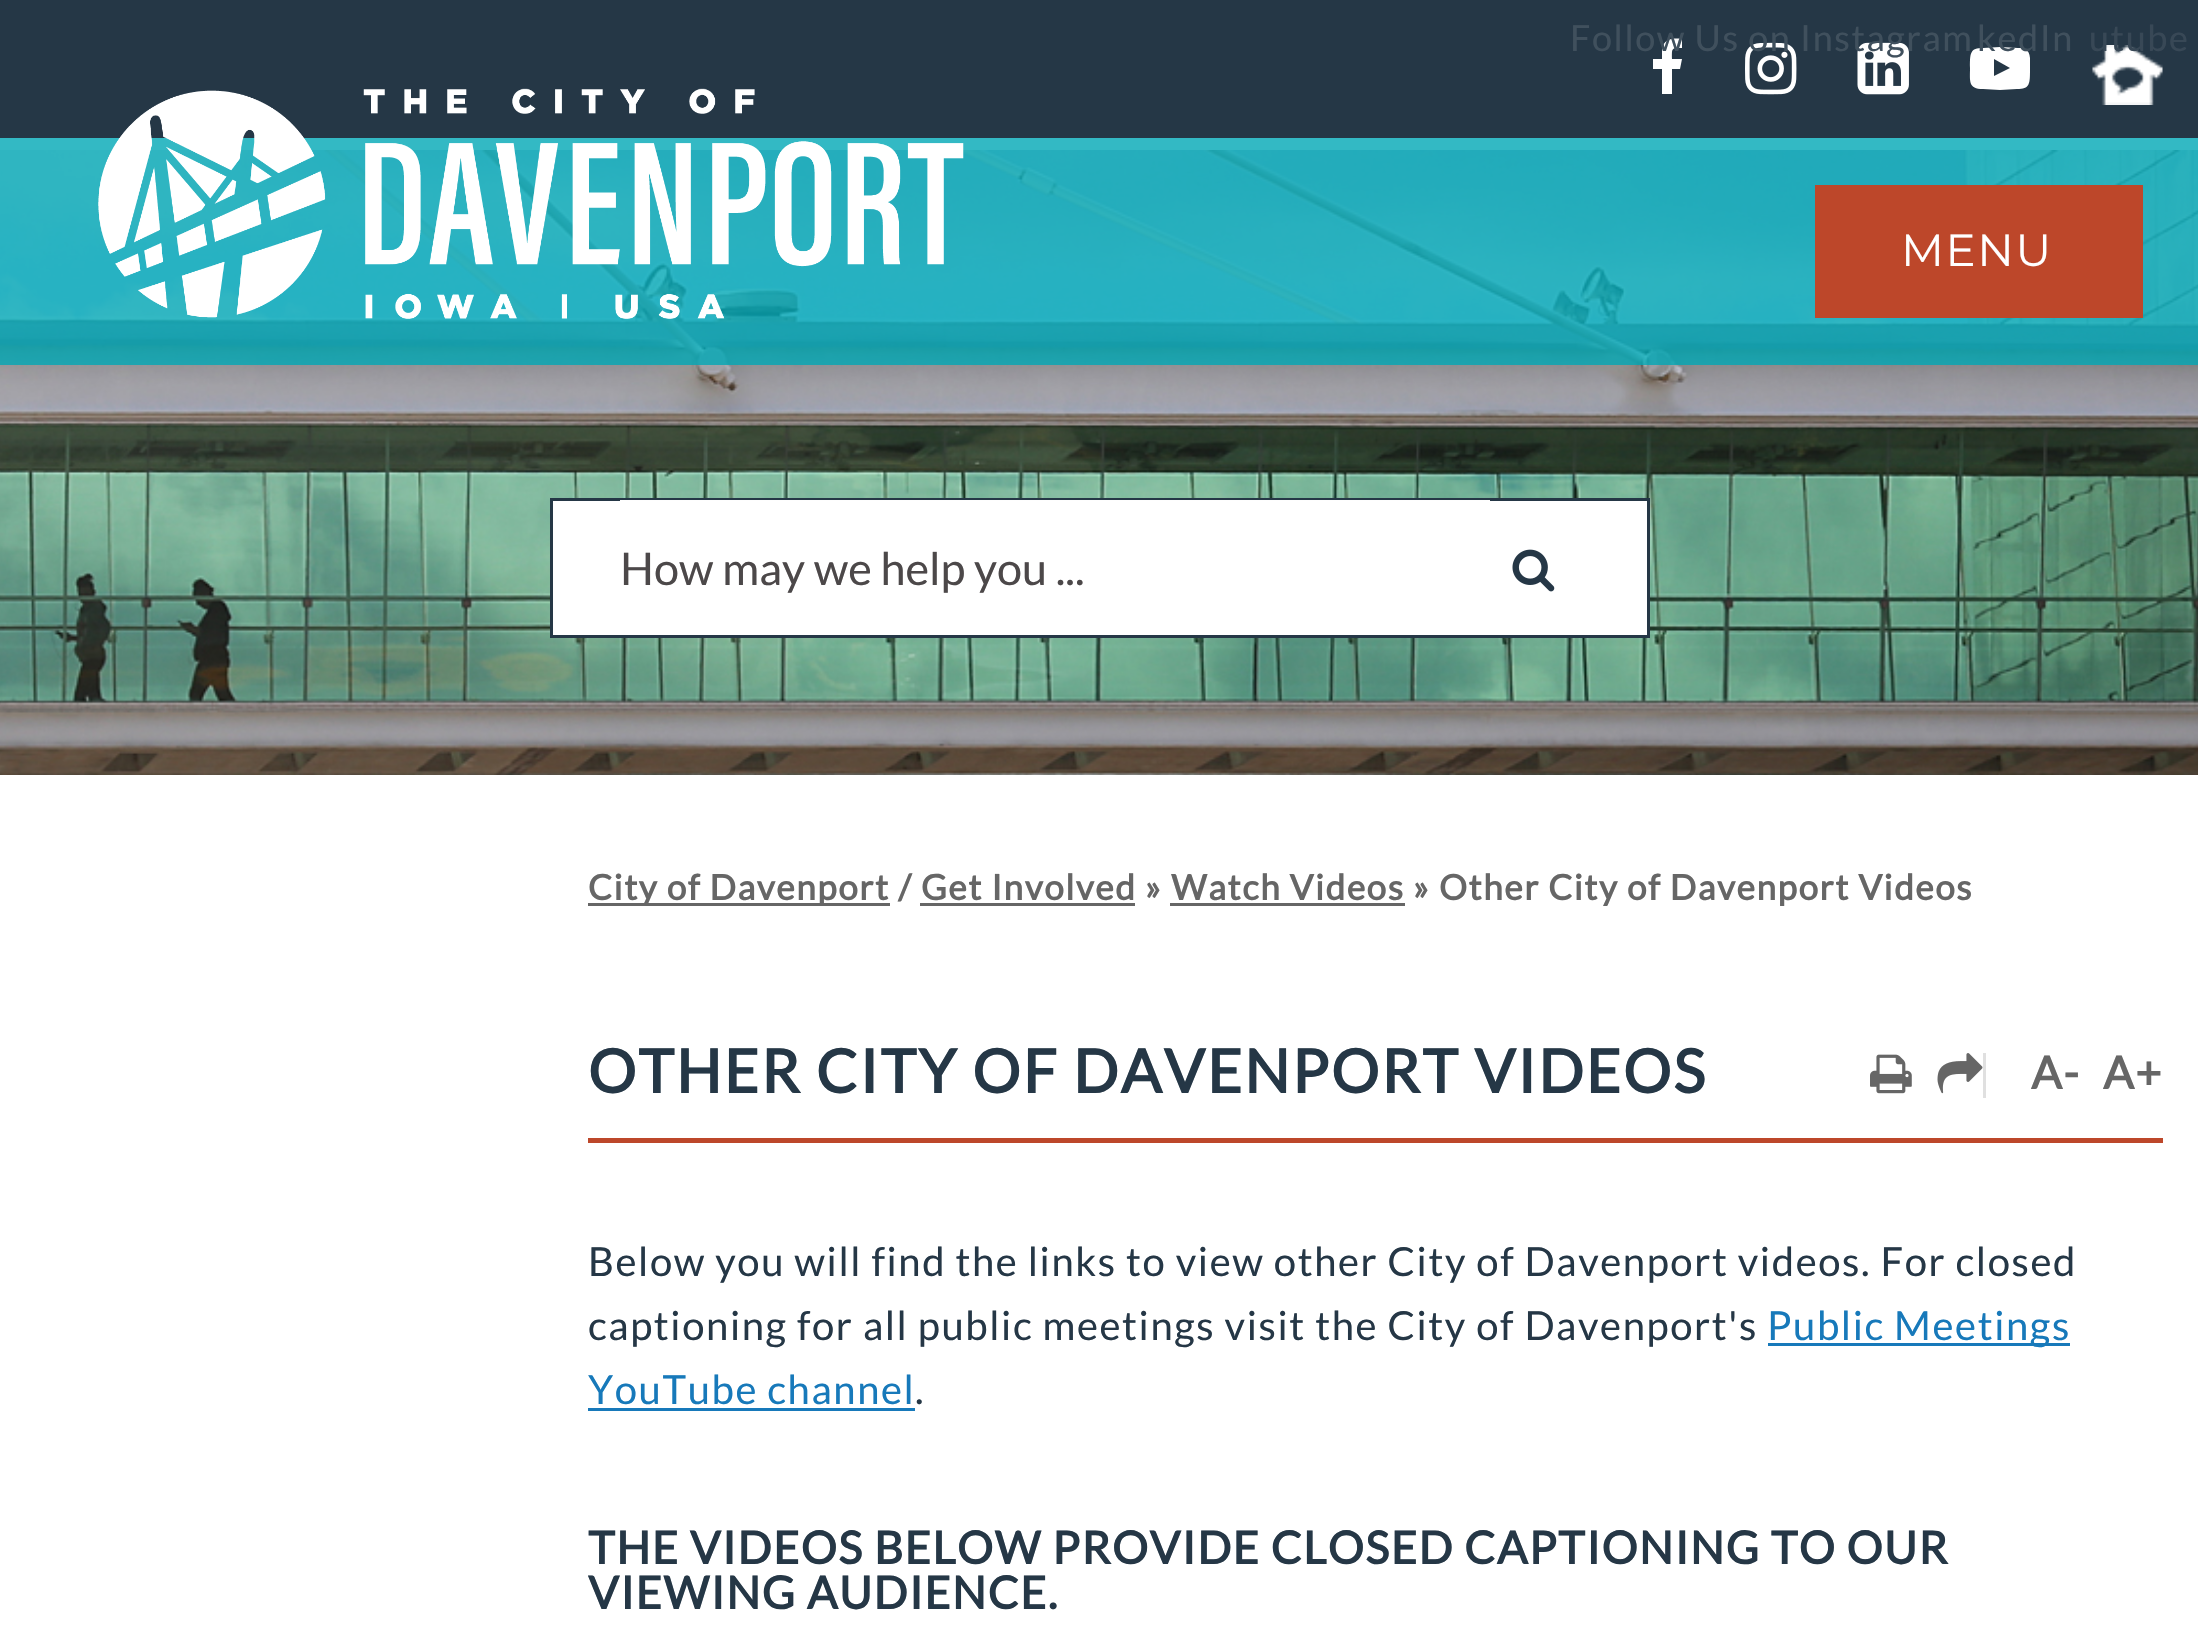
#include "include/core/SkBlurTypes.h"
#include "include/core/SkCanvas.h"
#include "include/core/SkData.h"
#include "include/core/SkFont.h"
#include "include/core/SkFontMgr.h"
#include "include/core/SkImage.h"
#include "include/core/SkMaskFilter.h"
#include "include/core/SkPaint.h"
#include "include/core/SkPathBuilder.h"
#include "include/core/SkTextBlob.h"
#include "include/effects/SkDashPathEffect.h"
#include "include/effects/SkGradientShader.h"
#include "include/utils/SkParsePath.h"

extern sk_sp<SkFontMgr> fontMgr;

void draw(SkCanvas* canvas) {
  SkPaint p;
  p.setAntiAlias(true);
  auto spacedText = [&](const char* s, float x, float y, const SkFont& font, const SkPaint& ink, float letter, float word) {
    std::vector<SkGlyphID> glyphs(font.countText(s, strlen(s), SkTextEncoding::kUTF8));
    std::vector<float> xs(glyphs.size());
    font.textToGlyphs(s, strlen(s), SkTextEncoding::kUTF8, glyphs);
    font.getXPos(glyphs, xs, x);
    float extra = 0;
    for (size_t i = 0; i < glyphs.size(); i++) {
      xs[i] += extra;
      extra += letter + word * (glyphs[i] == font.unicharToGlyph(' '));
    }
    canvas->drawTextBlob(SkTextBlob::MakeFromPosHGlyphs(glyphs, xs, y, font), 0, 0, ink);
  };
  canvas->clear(SK_ColorWHITE);
  p.setColor(SkColorSetRGB(37, 55, 70));
  canvas->drawRect(SkRect::MakeLTRB(0, 0, 2198, 138), p);
  canvas->drawImageRect(SkImages::DeferredFromEncodedData(SkData::MakeFromFileName("images/1.png")), SkRect::MakeLTRB(1745, 42, 1797, 95), SkSamplingOptions());
  canvas->drawImageRect(SkImages::DeferredFromEncodedData(SkData::MakeFromFileName("images/2.png")), SkRect::MakeLTRB(1857, 42, 1909, 95), SkSamplingOptions());
  p.setColor(SK_ColorWHITE);
  canvas->drawPath(SkPathBuilder().moveTo(1994, 76).lineTo(2010, 68).lineTo(1994, 59).close().moveTo(2000, 47).lineTo(2018, 48).cubicTo(2025, 48, 2029, 49, 2030, 58).lineTo(2030, 69).cubicTo(2030, 84, 2030, 89, 2017, 89).lineTo(2000, 90).lineTo(1983, 89).cubicTo(1968, 89, 1970, 81, 1970, 68).cubicTo(1970, 53, 1970, 48, 1983, 48).close().detach(), p);
  canvas->drawPath(SkPathBuilder().moveTo(1682, 39).lineTo(1682, 48).cubicTo(1671, 48, 1672, 48, 1672, 59).lineTo(1682, 59).lineTo(1680, 69).lineTo(1672, 69).lineTo(1672, 94).lineTo(1662, 94).lineTo(1662, 69).lineTo(1653, 69).lineTo(1653, 59).lineTo(1662, 59).lineTo(1662, 49).cubicTo(1664, 38, 1674, 38, 1682, 39).close().detach(), p);
  canvas->drawImageRect(SkImages::DeferredFromEncodedData(SkData::MakeFromFileName("images/3.png")), SkRect::MakeLTRB(2092, 45, 2163, 105), SkSamplingOptions());
  canvas->drawImageRect(SkImages::DeferredFromEncodedData(SkData::MakeFromFileName("images/5.png")), SkRect::MakeLTRB(0, 150, 2198, 775), SkSamplingOptions());
  p.setColor(SkColorSetARGB(204, 0, 167, 181));
  canvas->drawRect(SkRect::MakeLTRB(0, 138, 2198, 365), p);
  canvas->drawImageRect(SkImages::DeferredFromEncodedData(SkData::MakeFromFileName("images/4.png")), SkRect::MakeLTRB(98, 88, 964, 319), SkSamplingOptions());
  p.setColor(SkColorSetRGB(189, 71, 42));
  canvas->drawRect(SkRect::MakeLTRB(1815, 185, 2143, 318), p);
  p.setColor(SK_ColorWHITE);
  canvas->drawRect(SkRect::MakeLTRB(551.5f, 499.5f, 1648.5f, 636.5f), p);
  p.setStyle(SkPaint::kStroke_Style);
  p.setStrokeWidth(3);
  p.setColor(SkColorSetRGB(37, 55, 70));
  canvas->drawRect(SkRect::MakeLTRB(551.5f, 499.5f, 1648.5f, 636.5f), p);
  p.setStyle(SkPaint::kFill_Style);
  p.setColor(SkColorSetRGB(254, 254, 254));
  canvas->drawRect(SkRect::MakeLTRB(620, 500, 1490, 501), p);
  canvas->drawImageRect(SkImages::DeferredFromEncodedData(SkData::MakeFromFileName("images/6.png")), SkRect::MakeLTRB(1512, 549, 1555, 592), SkSamplingOptions());
  p.setColor(SkColorSetRGB(189, 71, 42));
  canvas->drawRect(SkRect::MakeLTRB(588, 1138, 2163, 1143), p);
  p.setColor(SkColorSetRGB(102, 102, 102));
  canvas->drawRect(SkRect::MakeLTRB(588, 903, 890, 906), p);
  canvas->drawRect(SkRect::MakeLTRB(920, 903, 1135, 906), p);
  canvas->drawRect(SkRect::MakeLTRB(1170, 903, 1405, 906), p);
  p.setColor(SkColorSetRGB(224, 224, 224));
  canvas->drawRect(SkRect::MakeLTRB(1983, 1053, 1986, 1098), p);
  canvas->drawImageRect(SkImages::DeferredFromEncodedData(SkData::MakeFromFileName("images/7.png")), SkRect::MakeLTRB(1870, 1054, 1912, 1094), SkSamplingOptions());
  canvas->drawImageRect(SkImages::DeferredFromEncodedData(SkData::MakeFromFileName("images/8.png")), SkRect::MakeLTRB(1937, 1053, 1983, 1094), SkSamplingOptions());
  p.setColor(SkColorSetRGB(23, 121, 186));
  canvas->drawRect(SkRect::MakeLTRB(1768, 1343, 2070, 1346), p);
  canvas->drawRect(SkRect::MakeLTRB(588, 1408, 915, 1411), p);
  SkFont font1(fontMgr->matchFamilyStyle("Lato", SkFontStyle::Normal()), 36);
  font1.setSubpixel(true);
  p.setColor(SkColorSetRGB(64, 80, 93));
  spacedText("Follow Us on Instagram", 1570, 51, font1, p, 1.6f, 0);
  spacedText("kedIn", 1977, 51, font1, p, 1.6f, 0);
  p.setColor(SkColorSetRGB(56, 72, 86));
  spacedText("utube", 2089, 51, font1, p, 1.6f, 0);
  SkFont font2(fontMgr->matchFamilyStyle("Montserrat", SkFontStyle::Normal()), 45);
  font2.setSubpixel(true);
  p.setColor(SK_ColorWHITE);
  spacedText("MENU", 1901, 266, font2, p, 1.6f, 0);
  SkFont font3(fontMgr->matchFamilyStyle("Lato", SkFontStyle::Normal()), 45);
  font3.setSubpixel(true);
  p.setColor(SkColorSetRGB(76, 72, 73));
  canvas->drawString("How may we help you ...", 620, 585, font3, p);
  SkFont font4(fontMgr->matchFamilyStyle("Lato", SkFontStyle::Bold()), 35);
  font4.setSubpixel(true);
  p.setColor(SkColorSetRGB(102, 102, 102));
  spacedText("City of Davenport / Get Involved » Watch Videos » Other City of Davenport Videos", 588, 900, font4, p, 1.6f, 0);
  SkFont font5(fontMgr->matchFamilyStyle("Lato", SkFontStyle::Bold()), 60);
  font5.setSubpixel(true);
  p.setColor(SkColorSetRGB(37, 55, 70));
  spacedText("OTHER CITY OF DAVENPORT VIDEOS", 588, 1093, font5, p, 2.4f, 0);
  SkFont font6(fontMgr->matchFamilyStyle("Lato", SkFontStyle::Bold()), 45);
  font6.setSubpixel(true);
  p.setColor(SkColorSetRGB(102, 102, 102));
  spacedText("A-", 2031, 1089, font6, p, 1.6f, 0);
  spacedText("A+", 2103, 1089, font6, p, 1.6f, 0);
  SkFont font7(fontMgr->matchFamilyStyle("Lato", SkFontStyle::Normal()), 40);
  font7.setSubpixel(true);
  p.setColor(SkColorSetRGB(37, 55, 70));
  spacedText("Below you will find the links to view other City of Davenport videos. For closed", 588, 1276, font7, p, 1.6f, 0);
  spacedText("captioning for all public meetings visit the City of Davenport's", 588, 1340, font7, p, 1.6f, 0);
  p.setColor(SkColorSetRGB(23, 121, 186));
  spacedText("Public Meetings", 1767, 1340, font7, p, 1.6f, 0);
  spacedText("YouTube channel", 588, 1404, font7, p, 1.6f, 0);
  p.setColor(SkColorSetRGB(37, 55, 70));
  spacedText(".", 915, 1404, font7, p, 1.6f, 0);
  spacedText("THE VIDEOS BELOW PROVIDE CLOSED CAPTIONING TO OUR", 588, 1564, font6, p, 1.6f, 0);
  spacedText("VIEWING AUDIENCE.", 588, 1609, font6, p, 1.6f, 0);
}
